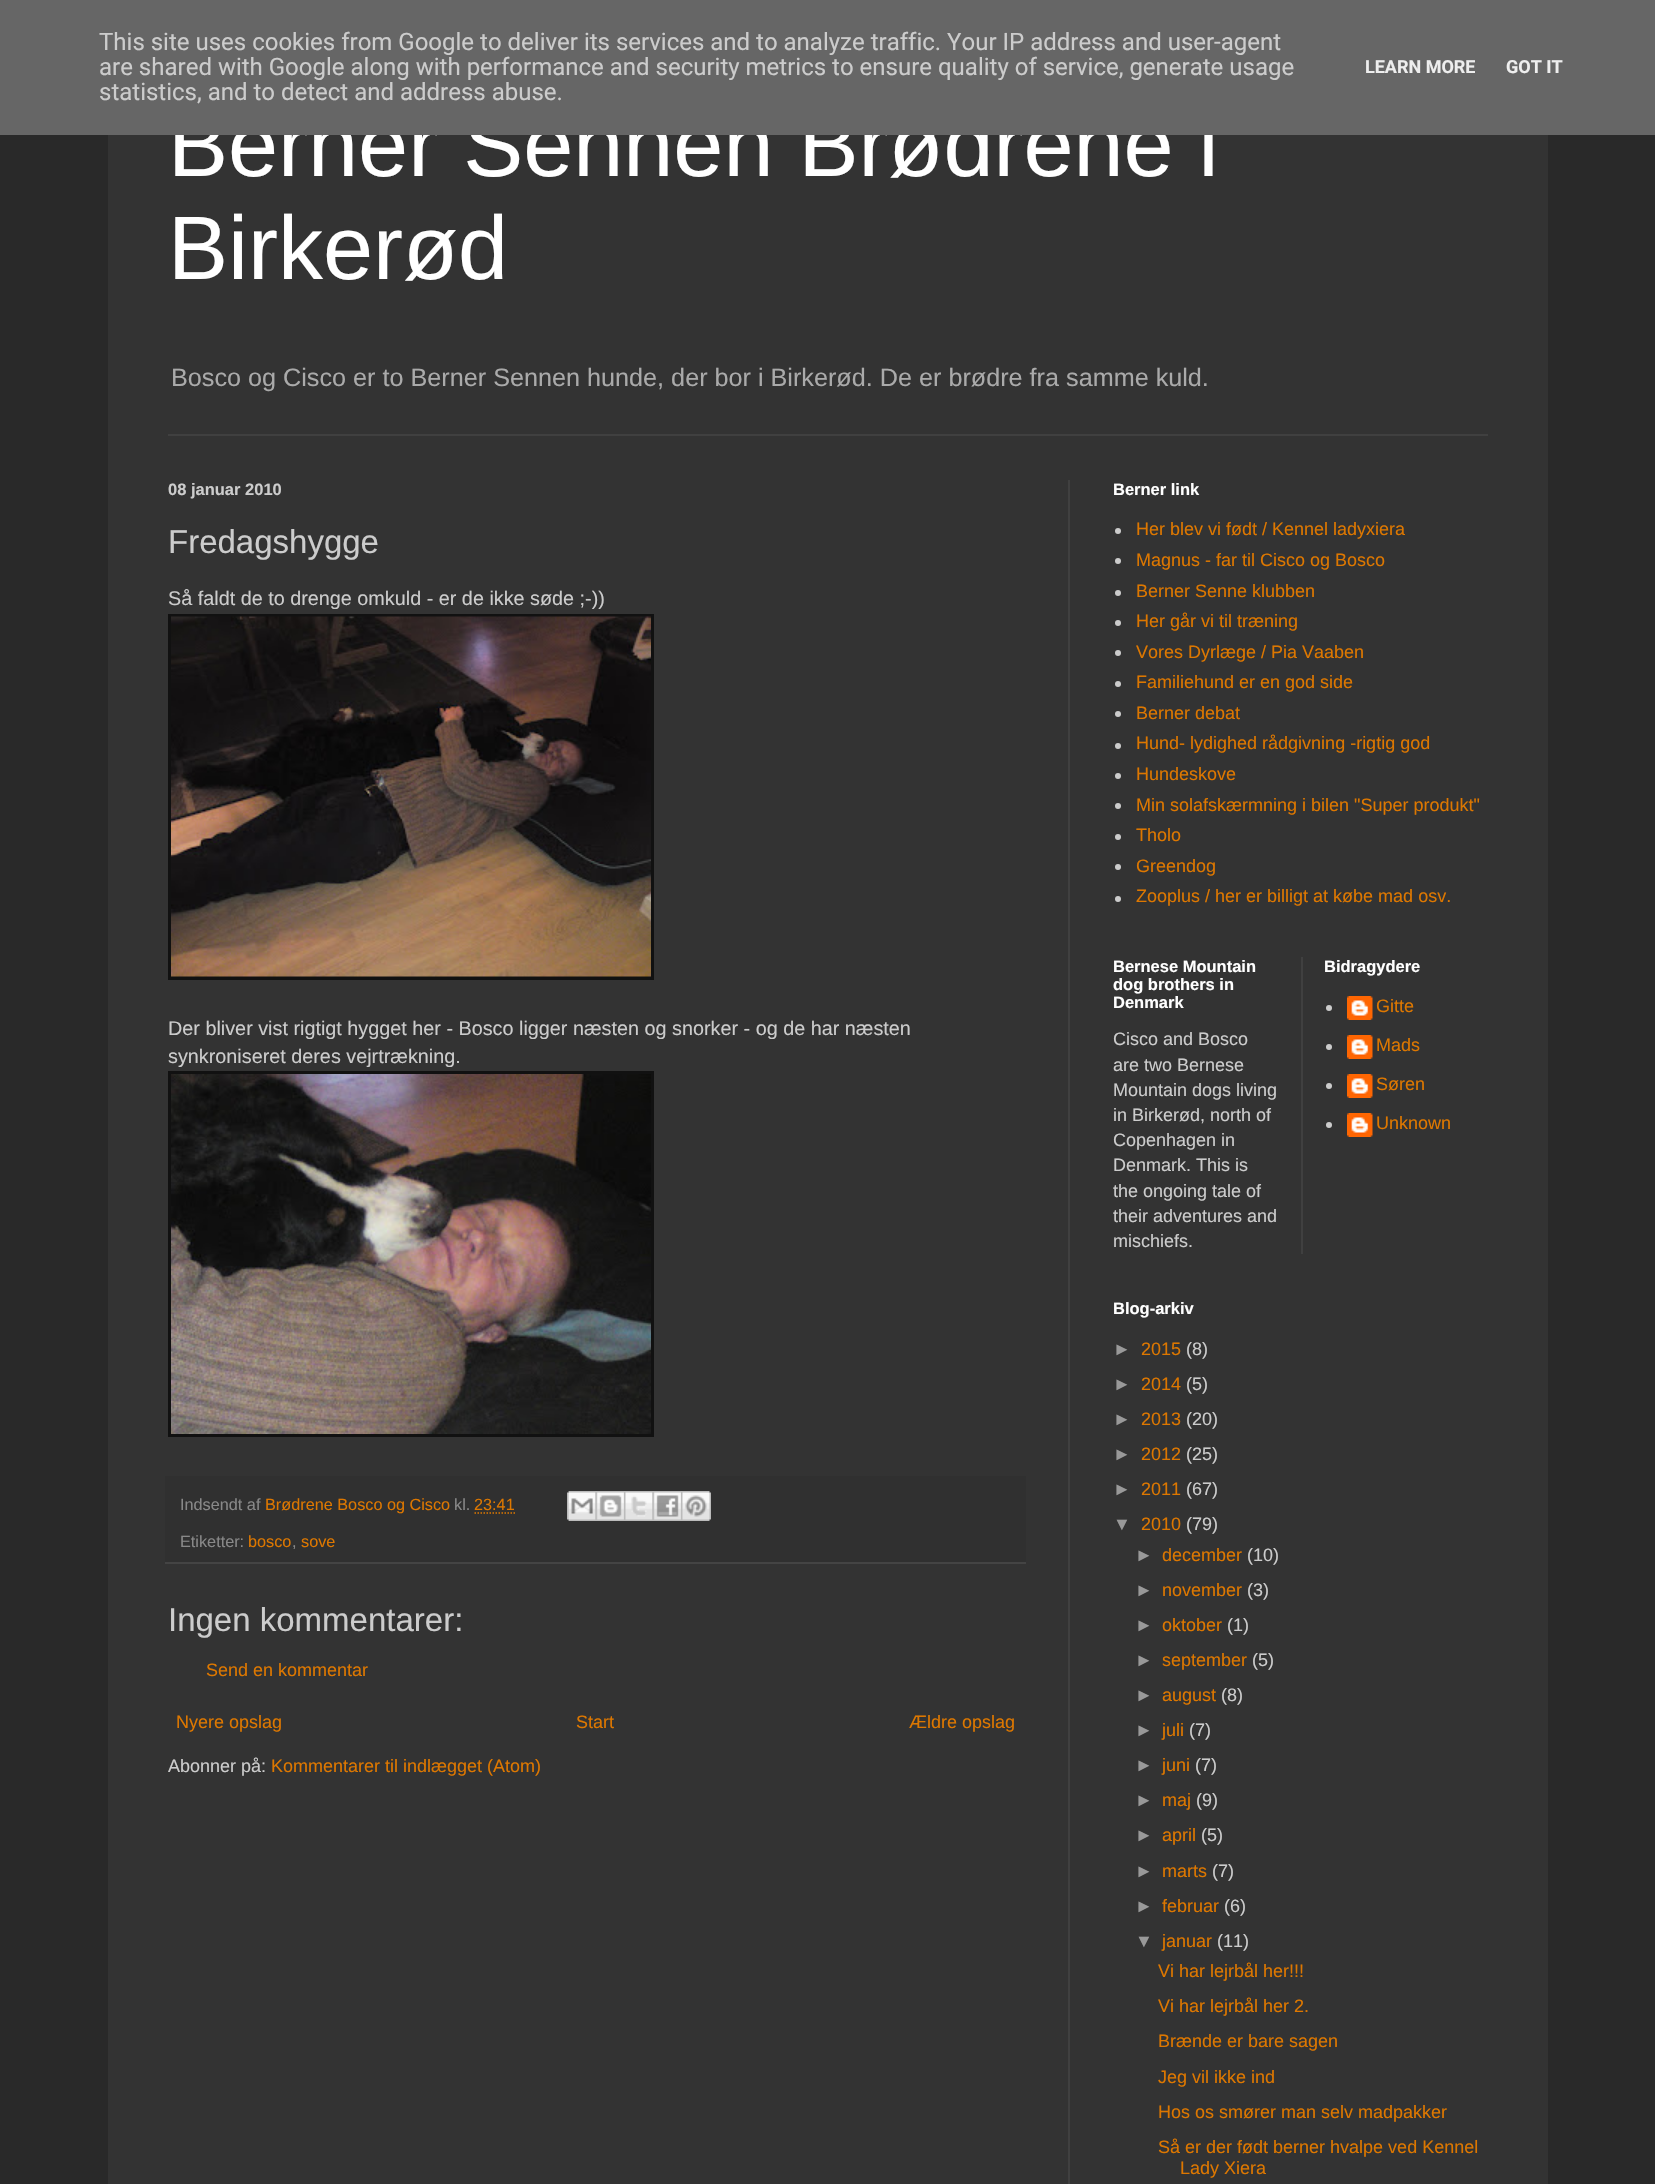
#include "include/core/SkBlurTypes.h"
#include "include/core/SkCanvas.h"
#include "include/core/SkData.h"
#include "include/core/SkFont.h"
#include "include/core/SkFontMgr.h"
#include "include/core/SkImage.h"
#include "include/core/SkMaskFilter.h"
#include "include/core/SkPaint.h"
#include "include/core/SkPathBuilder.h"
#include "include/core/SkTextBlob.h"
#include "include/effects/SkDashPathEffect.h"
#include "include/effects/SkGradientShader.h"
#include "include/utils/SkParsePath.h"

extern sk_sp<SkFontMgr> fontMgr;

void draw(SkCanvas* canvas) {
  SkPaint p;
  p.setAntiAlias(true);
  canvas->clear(SkColorSetRGB(41, 41, 41));
  p.setColor(SkColorSetRGB(51, 51, 51));
  canvas->drawRect(SkRect::MakeLTRB(108, 135, 1548, 2184), p);
  p.setColor(SkColorSetRGB(64, 64, 64));
  canvas->drawRect(SkRect::MakeLTRB(168, 434, 1488, 436), p);
  canvas->drawRect(SkRect::MakeLTRB(1068, 480, 1070, 2184), p);
  p.setColor(SkColorSetRGB(17, 17, 17));
  canvas->drawRect(SkRect::MakeLTRB(168, 614, 654, 980), p);
  canvas->drawImageRect(SkImages::DeferredFromEncodedData(SkData::MakeFromFileName("images/1.png")), SkRect::MakeLTRB(171, 616, 651, 977), SkSamplingOptions());
  canvas->drawRect(SkRect::MakeLTRB(168, 1071, 654, 1437), p);
  canvas->drawImageRect(SkImages::DeferredFromEncodedData(SkData::MakeFromFileName("images/2.png")), SkRect::MakeLTRB(171, 1074, 651, 1434), SkSamplingOptions());
  p.setColor(SkColorSetRGB(48, 48, 48));
  canvas->drawRect(SkRect::MakeLTRB(165, 1476, 1026, 1562), p);
  p.setColor(SkColorSetRGB(68, 68, 68));
  canvas->drawRect(SkRect::MakeLTRB(165, 1562, 1026, 1564), p);
  p.setStyle(SkPaint::kStroke_Style);
  p.setStrokeWidth(1.5f);
  p.setColor(SkColorSetRGB(221, 119, 0));
  p.setPathEffect(SkDashPathEffect::Make({{1.5f, 1.5f}}, 0));
  canvas->drawPath(SkPathBuilder().moveTo(474.5f, 1513).lineTo(515, 1513).detach(), p);
  p.setPathEffect(nullptr);
  canvas->drawImageRect(SkImages::DeferredFromEncodedData(SkData::MakeFromFileName("images/3.png")), SkRect::MakeLTRB(567, 1491, 596, 1521), SkSamplingOptions());
  canvas->drawImageRect(SkImages::DeferredFromEncodedData(SkData::MakeFromFileName("images/4.png")), SkRect::MakeLTRB(595, 1491, 624, 1521), SkSamplingOptions());
  canvas->drawImageRect(SkImages::DeferredFromEncodedData(SkData::MakeFromFileName("images/5.png")), SkRect::MakeLTRB(624, 1491, 653, 1521), SkSamplingOptions());
  canvas->drawImageRect(SkImages::DeferredFromEncodedData(SkData::MakeFromFileName("images/6.png")), SkRect::MakeLTRB(652, 1491, 681, 1521), SkSamplingOptions());
  canvas->drawImageRect(SkImages::DeferredFromEncodedData(SkData::MakeFromFileName("images/7.png")), SkRect::MakeLTRB(681, 1491, 711, 1521), SkSamplingOptions());
  p.setStyle(SkPaint::kFill_Style);
  p.setColor(SkColorSetRGB(204, 204, 204));
  canvas->drawCircle(1118, 531, 3, p);
  canvas->drawCircle(1118, 561, 3, p);
  canvas->drawCircle(1118, 593, 3, p);
  canvas->drawCircle(1118, 623, 3, p);
  canvas->drawCircle(1118, 653, 3, p);
  canvas->drawCircle(1118, 684, 3, p);
  canvas->drawCircle(1118, 714, 3, p);
  canvas->drawCircle(1118, 746, 3, p);
  canvas->drawCircle(1118, 776, 3, p);
  canvas->drawCircle(1118, 806, 3, p);
  canvas->drawCircle(1118, 837, 3, p);
  canvas->drawCircle(1118, 867, 3, p);
  canvas->drawCircle(1118, 899, 3, p);
  p.setColor(SkColorSetRGB(64, 64, 64));
  canvas->drawRect(SkRect::MakeLTRB(1301, 957, 1303, 1254), p);
  p.setColor(SkColorSetRGB(204, 204, 204));
  canvas->drawCircle(1329, 1008, 3, p);
  canvas->drawImageRect(SkImages::DeferredFromEncodedData(SkData::MakeFromFileName("images/8.png")), SkRect::MakeLTRB(1347, 996, 1373, 1020), SkSamplingOptions());
  canvas->drawCircle(1329, 1047, 3, p);
  canvas->drawImageRect(SkImages::DeferredFromEncodedData(SkData::MakeFromFileName("images/8.png")), SkRect::MakeLTRB(1347, 1035, 1373, 1059), SkSamplingOptions());
  canvas->drawCircle(1329, 1086, 3, p);
  canvas->drawImageRect(SkImages::DeferredFromEncodedData(SkData::MakeFromFileName("images/8.png")), SkRect::MakeLTRB(1347, 1074, 1373, 1098), SkSamplingOptions());
  canvas->drawCircle(1329, 1125, 3, p);
  canvas->drawImageRect(SkImages::DeferredFromEncodedData(SkData::MakeFromFileName("images/8.png")), SkRect::MakeLTRB(1347, 1113, 1373, 1137), SkSamplingOptions());
  SkFont font1(fontMgr->matchFamilyStyle("Liberation Sans", SkFontStyle::Normal()), 90);
  font1.setSubpixel(true);
  p.setColor(SK_ColorWHITE);
  canvas->drawString("Berner Sennen Brødrene i", 168, 176, font1, p);
  p.setColor(SkColorSetRGB(102, 102, 102));
  canvas->drawRect(SkRect::MakeLTRB(0, 0, 1655, 135), p);
  SkFont font2(fontMgr->matchFamilyStyle("Roboto", SkFontStyle::Bold()), 18);
  font2.setSubpixel(true);
  p.setColor(SkColorSetRGB(238, 238, 238));
  canvas->drawString("GOT IT", 1506, 73, font2, p);
  canvas->drawString("LEARN MORE", 1365, 73, font2, p);
  SkFont font3(fontMgr->matchFamilyStyle("Roboto", SkFontStyle::Normal()), 24);
  font3.setSubpixel(true);
  p.setColor(SkColorSetRGB(204, 204, 204));
  canvas->drawString("statistics, and to detect and address abuse.", 99, 100, font3, p);
  canvas->drawString("are shared with Google along with performance and security metrics to ensure quality of service, generate usage", 99, 75, font3, p);
  canvas->drawString("This site uses cookies from Google to deliver its services and to analyze traffic. Your IP address and user-agent", 99, 50, font3, p);
  p.setColor(SK_ColorWHITE);
  canvas->drawString("Birkerød", 168, 279, font1, p);
  SkFont font4(fontMgr->matchFamilyStyle("Liberation Sans", SkFontStyle::Normal()), 25.2f);
  font4.setSubpixel(true);
  p.setColor(SkColorSetRGB(170, 170, 170));
  canvas->drawString("Bosco og Cisco er to Berner Sennen hunde, der bor i Birkerød. De er brødre fra samme kuld.", 171, 386, font4, p);
  SkFont font5(fontMgr->matchFamilyStyle("Liberation Sans", SkFontStyle::Bold()), 16.5f);
  font5.setSubpixel(true);
  p.setColor(SkColorSetRGB(204, 204, 204));
  canvas->drawString("08 januar 2010", 168, 495, font5, p);
  SkFont font6(fontMgr->matchFamilyStyle("Liberation Sans", SkFontStyle::Normal()), 33);
  font6.setSubpixel(true);
  canvas->drawString("Fredagshygge", 168, 553, font6, p);
  SkFont font7(fontMgr->matchFamilyStyle("Liberation Sans", SkFontStyle::Normal()), 19.8f);
  font7.setSubpixel(true);
  canvas->drawString("Så faldt de to drenge omkuld - er de ikke søde ;-))", 168, 605, font7, p);
  canvas->drawString("Der bliver vist rigtigt hygget her - Bosco ligger næsten og snorker - og de har næsten", 168, 1035, font7, p);
  canvas->drawString("synkroniseret deres vejrtrækning.", 168, 1063, font7, p);
  SkFont font8(fontMgr->matchFamilyStyle("Liberation Sans", SkFontStyle::Normal()), 16.25f);
  font8.setSubpixel(true);
  p.setColor(SkColorSetRGB(136, 136, 136));
  canvas->drawString("Indsendt af", 180, 1510, font8, p);
  p.setColor(SkColorSetRGB(221, 119, 0));
  canvas->drawString("Brødrene Bosco og Cisco", 265, 1510, font8, p);
  p.setColor(SkColorSetRGB(136, 136, 136));
  canvas->drawString("kl.", 454, 1510, font8, p);
  p.setColor(SkColorSetRGB(221, 119, 0));
  canvas->drawString("23:41", 474, 1510, font8, p);
  p.setColor(SkColorSetRGB(136, 136, 136));
  canvas->drawString("Etiketter:", 180, 1547, font8, p);
  p.setColor(SkColorSetRGB(221, 119, 0));
  canvas->drawString("bosco", 248, 1547, font8, p);
  p.setColor(SkColorSetRGB(136, 136, 136));
  canvas->drawString(",", 292, 1547, font8, p);
  p.setColor(SkColorSetRGB(221, 119, 0));
  canvas->drawString("sove", 301, 1547, font8, p);
  p.setColor(SkColorSetRGB(204, 204, 204));
  canvas->drawString("Ingen kommentarer:", 168, 1631, font6, p);
  SkFont font9(fontMgr->matchFamilyStyle("Liberation Sans", SkFontStyle::Normal()), 18);
  font9.setSubpixel(true);
  p.setColor(SkColorSetRGB(221, 119, 0));
  canvas->drawString("Send en kommentar", 206, 1676, font9, p);
  canvas->drawString("Nyere opslag", 176, 1728, font9, p);
  canvas->drawString("Start", 576, 1728, font9, p);
  canvas->drawString("Ældre opslag", 909, 1728, font9, p);
  p.setColor(SkColorSetRGB(204, 204, 204));
  canvas->drawString("Abonner på:", 168, 1772, font9, p);
  p.setColor(SkColorSetRGB(221, 119, 0));
  canvas->drawString("Kommentarer til indlægget (Atom)", 271, 1772, font9, p);
  p.setColor(SK_ColorWHITE);
  canvas->drawString("Berner link", 1113, 495, font5, p);
  p.setColor(SkColorSetRGB(221, 119, 0));
  canvas->drawString("Her blev vi født / Kennel ladyxiera", 1136, 535, font9, p);
  canvas->drawString("Magnus - far til Cisco og Bosco", 1136, 566, font9, p);
  canvas->drawString("Berner Senne klubben", 1136, 597, font9, p);
  canvas->drawString("Her går vi til træning", 1136, 627, font9, p);
  canvas->drawString("Vores Dyrlæge / Pia Vaaben", 1136, 658, font9, p);
  canvas->drawString("Familiehund er en god side", 1136, 688, font9, p);
  canvas->drawString("Berner debat", 1136, 719, font9, p);
  canvas->drawString("Hund- lydighed rådgivning -rigtig god", 1136, 749, font9, p);
  canvas->drawString("Hundeskove", 1136, 780, font9, p);
  canvas->drawString("Min solafskærmning i bilen \"Super produkt\"", 1136, 811, font9, p);
  canvas->drawString("Tholo", 1136, 841, font9, p);
  canvas->drawString("Greendog", 1136, 872, font9, p);
  canvas->drawString("Zooplus / her er billigt at købe mad osv.", 1136, 902, font9, p);
  p.setColor(SK_ColorWHITE);
  canvas->drawString("Bernese Mountain", 1113, 972, font5, p);
  canvas->drawString("dog brothers in", 1113, 990, font5, p);
  canvas->drawString("Denmark", 1113, 1008, font5, p);
  p.setColor(SkColorSetRGB(204, 204, 204));
  canvas->drawString("Cisco and Bosco", 1113, 1045, font9, p);
  canvas->drawString("are two Bernese", 1113, 1071, font9, p);
  canvas->drawString("Mountain dogs living", 1113, 1096, font9, p);
  canvas->drawString("in Birkerød, north of", 1113, 1121, font9, p);
  canvas->drawString("Copenhagen in", 1113, 1146, font9, p);
  canvas->drawString("Denmark. This is", 1113, 1171, font9, p);
  canvas->drawString("the ongoing tale of", 1113, 1197, font9, p);
  canvas->drawString("their adventures and", 1113, 1222, font9, p);
  canvas->drawString("mischiefs.", 1113, 1247, font9, p);
  p.setColor(SK_ColorWHITE);
  canvas->drawString("Bidragydere", 1324, 972, font5, p);
  p.setColor(SkColorSetRGB(221, 119, 0));
  canvas->drawString("Gitte", 1376, 1012, font9, p);
  canvas->drawString("Mads", 1376, 1051, font9, p);
  canvas->drawString("Søren", 1376, 1090, font9, p);
  canvas->drawString("Unknown", 1376, 1129, font9, p);
  p.setColor(SK_ColorWHITE);
  canvas->drawString("Blog-arkiv", 1113, 1314, font5, p);
  p.setColor(SkColorSetRGB(153, 153, 153));
  canvas->drawString("►", 1113, 1355, font9, p);
  p.setColor(SkColorSetRGB(221, 119, 0));
  canvas->drawString("2015", 1141, 1355, font9, p);
  p.setColor(SkColorSetRGB(204, 204, 204));
  canvas->drawString("(8)", 1186, 1355, font9, p);
  p.setColor(SkColorSetRGB(153, 153, 153));
  canvas->drawString("►", 1113, 1390, font9, p);
  p.setColor(SkColorSetRGB(221, 119, 0));
  canvas->drawString("2014", 1141, 1390, font9, p);
  p.setColor(SkColorSetRGB(204, 204, 204));
  canvas->drawString("(5)", 1186, 1390, font9, p);
  p.setColor(SkColorSetRGB(153, 153, 153));
  canvas->drawString("►", 1113, 1425, font9, p);
  p.setColor(SkColorSetRGB(221, 119, 0));
  canvas->drawString("2013", 1141, 1425, font9, p);
  p.setColor(SkColorSetRGB(204, 204, 204));
  canvas->drawString("(20)", 1186, 1425, font9, p);
  p.setColor(SkColorSetRGB(153, 153, 153));
  canvas->drawString("►", 1113, 1460, font9, p);
  p.setColor(SkColorSetRGB(221, 119, 0));
  canvas->drawString("2012", 1141, 1460, font9, p);
  p.setColor(SkColorSetRGB(204, 204, 204));
  canvas->drawString("(25)", 1186, 1460, font9, p);
  p.setColor(SkColorSetRGB(153, 153, 153));
  canvas->drawString("►", 1113, 1495, font9, p);
  p.setColor(SkColorSetRGB(221, 119, 0));
  canvas->drawString("2011", 1141, 1495, font9, p);
  p.setColor(SkColorSetRGB(204, 204, 204));
  canvas->drawString("(67)", 1186, 1495, font9, p);
  p.setColor(SkColorSetRGB(153, 153, 153));
  canvas->drawString("▼", 1113, 1530, font9, p);
  p.setColor(SkColorSetRGB(221, 119, 0));
  canvas->drawString("2010", 1141, 1530, font9, p);
  p.setColor(SkColorSetRGB(204, 204, 204));
  canvas->drawString("(79)", 1186, 1530, font9, p);
  p.setColor(SkColorSetRGB(153, 153, 153));
  canvas->drawString("►", 1135, 1561, font9, p);
  p.setColor(SkColorSetRGB(221, 119, 0));
  canvas->drawString("december", 1162, 1561, font9, p);
  p.setColor(SkColorSetRGB(204, 204, 204));
  canvas->drawString("(10)", 1247, 1561, font9, p);
  p.setColor(SkColorSetRGB(153, 153, 153));
  canvas->drawString("►", 1135, 1596, font9, p);
  p.setColor(SkColorSetRGB(221, 119, 0));
  canvas->drawString("november", 1162, 1596, font9, p);
  p.setColor(SkColorSetRGB(204, 204, 204));
  canvas->drawString("(3)", 1247, 1596, font9, p);
  p.setColor(SkColorSetRGB(153, 153, 153));
  canvas->drawString("►", 1135, 1631, font9, p);
  p.setColor(SkColorSetRGB(221, 119, 0));
  canvas->drawString("oktober", 1162, 1631, font9, p);
  p.setColor(SkColorSetRGB(204, 204, 204));
  canvas->drawString("(1)", 1227, 1631, font9, p);
  p.setColor(SkColorSetRGB(153, 153, 153));
  canvas->drawString("►", 1135, 1666, font9, p);
  p.setColor(SkColorSetRGB(221, 119, 0));
  canvas->drawString("september", 1162, 1666, font9, p);
  p.setColor(SkColorSetRGB(204, 204, 204));
  canvas->drawString("(5)", 1252, 1666, font9, p);
  p.setColor(SkColorSetRGB(153, 153, 153));
  canvas->drawString("►", 1135, 1701, font9, p);
  p.setColor(SkColorSetRGB(221, 119, 0));
  canvas->drawString("august", 1162, 1701, font9, p);
  p.setColor(SkColorSetRGB(204, 204, 204));
  canvas->drawString("(8)", 1221, 1701, font9, p);
  p.setColor(SkColorSetRGB(153, 153, 153));
  canvas->drawString("►", 1135, 1736, font9, p);
  p.setColor(SkColorSetRGB(221, 119, 0));
  canvas->drawString("juli", 1162, 1736, font9, p);
  p.setColor(SkColorSetRGB(204, 204, 204));
  canvas->drawString("(7)", 1189, 1736, font9, p);
  p.setColor(SkColorSetRGB(153, 153, 153));
  canvas->drawString("►", 1135, 1771, font9, p);
  p.setColor(SkColorSetRGB(221, 119, 0));
  canvas->drawString("juni", 1162, 1771, font9, p);
  p.setColor(SkColorSetRGB(204, 204, 204));
  canvas->drawString("(7)", 1195, 1771, font9, p);
  p.setColor(SkColorSetRGB(153, 153, 153));
  canvas->drawString("►", 1135, 1806, font9, p);
  p.setColor(SkColorSetRGB(221, 119, 0));
  canvas->drawString("maj", 1162, 1806, font9, p);
  p.setColor(SkColorSetRGB(204, 204, 204));
  canvas->drawString("(9)", 1196, 1806, font9, p);
  p.setColor(SkColorSetRGB(153, 153, 153));
  canvas->drawString("►", 1135, 1841, font9, p);
  p.setColor(SkColorSetRGB(221, 119, 0));
  canvas->drawString("april", 1162, 1841, font9, p);
  p.setColor(SkColorSetRGB(204, 204, 204));
  canvas->drawString("(5)", 1201, 1841, font9, p);
  p.setColor(SkColorSetRGB(153, 153, 153));
  canvas->drawString("►", 1135, 1877, font9, p);
  p.setColor(SkColorSetRGB(221, 119, 0));
  canvas->drawString("marts", 1162, 1877, font9, p);
  p.setColor(SkColorSetRGB(204, 204, 204));
  canvas->drawString("(7)", 1212, 1877, font9, p);
  p.setColor(SkColorSetRGB(153, 153, 153));
  canvas->drawString("►", 1135, 1912, font9, p);
  p.setColor(SkColorSetRGB(221, 119, 0));
  canvas->drawString("februar", 1162, 1912, font9, p);
  p.setColor(SkColorSetRGB(204, 204, 204));
  canvas->drawString("(6)", 1224, 1912, font9, p);
  p.setColor(SkColorSetRGB(153, 153, 153));
  canvas->drawString("▼", 1135, 1947, font9, p);
  p.setColor(SkColorSetRGB(221, 119, 0));
  canvas->drawString("januar", 1162, 1947, font9, p);
  p.setColor(SkColorSetRGB(204, 204, 204));
  canvas->drawString("(11)", 1217, 1947, font9, p);
  p.setColor(SkColorSetRGB(221, 119, 0));
  canvas->drawString("Vi har lejrbål her!!!", 1158, 1977, font9, p);
  canvas->drawString("Vi har lejrbål her 2.", 1158, 2012, font9, p);
  canvas->drawString("Brænde er bare sagen", 1158, 2047, font9, p);
  canvas->drawString("Jeg vil ikke ind", 1158, 2083, font9, p);
  canvas->drawString("Hos os smører man selv madpakker", 1158, 2118, font9, p);
  canvas->drawString("Så er der født berner hvalpe ved Kennel", 1158, 2153, font9, p);
  canvas->drawString("Lady Xiera", 1180, 2174, font9, p);
}
